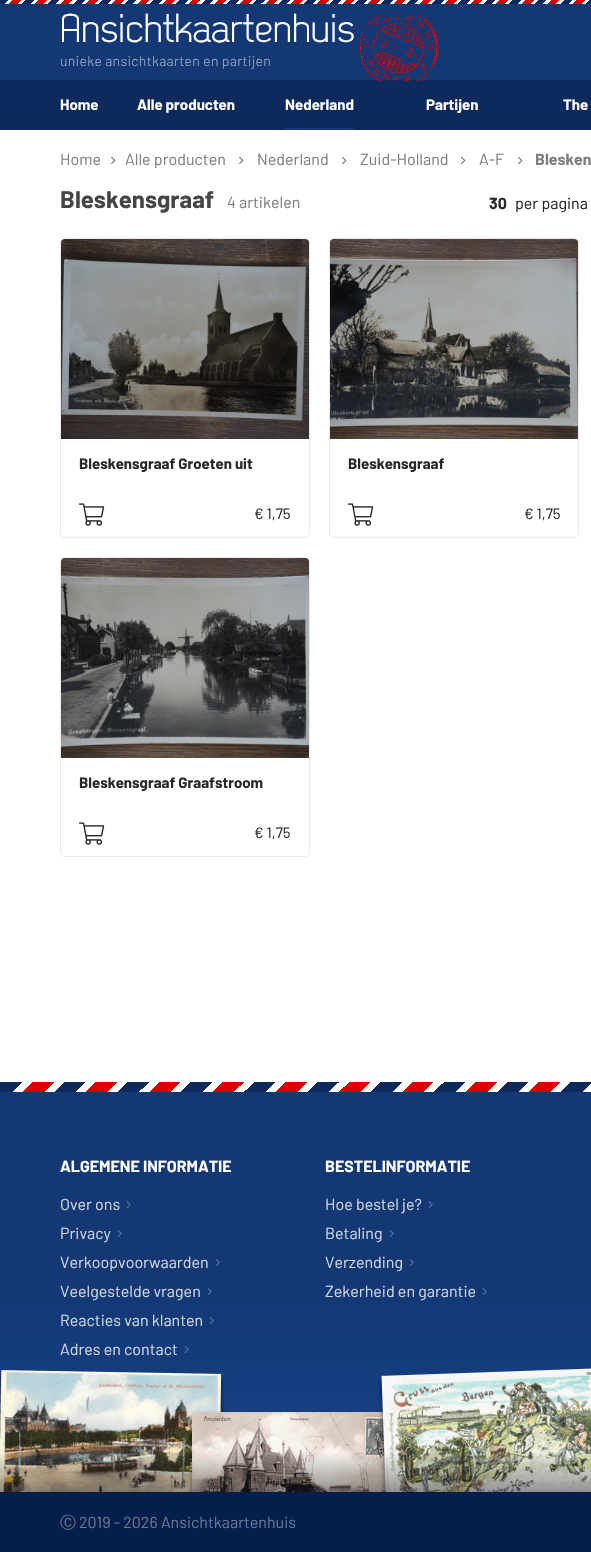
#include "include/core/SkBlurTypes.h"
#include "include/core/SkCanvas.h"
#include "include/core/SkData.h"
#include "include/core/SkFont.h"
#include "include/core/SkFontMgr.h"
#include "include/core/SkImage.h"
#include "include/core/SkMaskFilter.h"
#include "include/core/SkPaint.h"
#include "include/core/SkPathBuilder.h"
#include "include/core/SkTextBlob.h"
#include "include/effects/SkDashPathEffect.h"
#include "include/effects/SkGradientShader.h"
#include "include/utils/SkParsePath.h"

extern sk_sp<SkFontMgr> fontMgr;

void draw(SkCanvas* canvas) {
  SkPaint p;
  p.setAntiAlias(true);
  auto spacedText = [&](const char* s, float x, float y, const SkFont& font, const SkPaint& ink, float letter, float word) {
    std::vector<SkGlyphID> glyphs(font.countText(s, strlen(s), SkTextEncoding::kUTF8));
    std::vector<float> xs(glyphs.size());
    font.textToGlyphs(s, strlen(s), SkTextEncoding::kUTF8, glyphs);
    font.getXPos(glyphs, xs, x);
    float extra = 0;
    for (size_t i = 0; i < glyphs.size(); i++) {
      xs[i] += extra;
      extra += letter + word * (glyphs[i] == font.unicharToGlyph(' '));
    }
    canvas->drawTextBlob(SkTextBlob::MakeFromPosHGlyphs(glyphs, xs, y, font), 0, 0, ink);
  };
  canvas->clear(SK_ColorWHITE);
  p.setColor(SkColorSetRGB(19, 56, 116));
  canvas->drawRect(SkRect::MakeLTRB(0, 4, 591, 80), p);
  canvas->drawImageRect(SkImages::DeferredFromEncodedData(SkData::MakeFromFileName("images/1.png")), SkRect::MakeLTRB(0, 0, 591, 4), SkSamplingOptions());
  p.setColor(SkColorSetRGB(14, 42, 93));
  canvas->drawRect(SkRect::MakeLTRB(0, 80, 591, 130), p);
  canvas->drawImageRect(SkImages::DeferredFromEncodedData(SkData::MakeFromFileName("images/2.png")), SkRect::MakeLTRB(359, 15, 439, 81), SkSamplingOptions());
  p.setColor(SkColorSetRGB(19, 56, 116));
  canvas->drawRect(SkRect::MakeLTRB(285, 128, 354, 130), p);
  canvas->drawImageRect(SkImages::DeferredFromEncodedData(SkData::MakeFromFileName("images/3.png")), SkRect::MakeLTRB(111, 156, 116, 165), SkSamplingOptions());
  canvas->drawImageRect(SkImages::DeferredFromEncodedData(SkData::MakeFromFileName("images/3.png")), SkRect::MakeLTRB(239, 156, 244, 165), SkSamplingOptions());
  canvas->drawImageRect(SkImages::DeferredFromEncodedData(SkData::MakeFromFileName("images/3.png")), SkRect::MakeLTRB(342, 156, 347, 165), SkSamplingOptions());
  canvas->drawImageRect(SkImages::DeferredFromEncodedData(SkData::MakeFromFileName("images/3.png")), SkRect::MakeLTRB(461, 156, 466, 165), SkSamplingOptions());
  canvas->drawImageRect(SkImages::DeferredFromEncodedData(SkData::MakeFromFileName("images/3.png")), SkRect::MakeLTRB(518, 156, 523, 165), SkSamplingOptions());
  p.setStyle(SkPaint::kStroke_Style);
  p.setStrokeWidth(1);
  p.setColor(SkColorSetRGB(235, 235, 235));
  canvas->drawRoundRect(SkRect::MakeLTRB(60.5f, 238.5f, 309.5f, 537.5f), 4.5f, 4.5f, p);
  canvas->drawImageRect(SkImages::DeferredFromEncodedData(SkData::MakeFromFileName("images/4.png")), SkRect::MakeLTRB(61, 239, 309, 439), SkSamplingOptions());
  canvas->drawImageRect(SkImages::DeferredFromEncodedData(SkData::MakeFromFileName("images/5.png")), SkRect::MakeLTRB(79, 503, 105, 526), SkSamplingOptions());
  canvas->drawRoundRect(SkRect::MakeLTRB(329.5f, 238.5f, 578.5f, 537.5f), 4.5f, 4.5f, p);
  canvas->drawImageRect(SkImages::DeferredFromEncodedData(SkData::MakeFromFileName("images/6.png")), SkRect::MakeLTRB(330, 239, 578, 439), SkSamplingOptions());
  canvas->drawImageRect(SkImages::DeferredFromEncodedData(SkData::MakeFromFileName("images/5.png")), SkRect::MakeLTRB(348, 503, 374, 526), SkSamplingOptions());
  canvas->drawRoundRect(SkRect::MakeLTRB(60.5f, 557.5f, 309.5f, 856.5f), 4.5f, 4.5f, p);
  canvas->drawImageRect(SkImages::DeferredFromEncodedData(SkData::MakeFromFileName("images/7.png")), SkRect::MakeLTRB(61, 558, 309, 758), SkSamplingOptions());
  canvas->drawImageRect(SkImages::DeferredFromEncodedData(SkData::MakeFromFileName("images/5.png")), SkRect::MakeLTRB(79, 822, 105, 845), SkSamplingOptions());
  p.setStyle(SkPaint::kFill_Style);
  p.setColor(SkColorSetRGB(5, 30, 75));
  canvas->drawRect(SkRect::MakeLTRB(0, 1492, 591, 1552), p);
  canvas->drawImageRect(SkImages::DeferredFromEncodedData(SkData::MakeFromFileName("images/8.png")), SkRect::MakeLTRB(0, 1082, 591, 1092), SkSamplingOptions());
  p.setColor(SkColorSetRGB(19, 56, 116));
  canvas->drawRect(SkRect::MakeLTRB(0, 1092, 591, 1292), p);
  canvas->drawImageRect(SkImages::DeferredFromEncodedData(SkData::MakeFromFileName("images/9.png")), SkRect::MakeLTRB(126, 1201, 131, 1208), SkSamplingOptions());
  canvas->drawImageRect(SkImages::DeferredFromEncodedData(SkData::MakeFromFileName("images/9.png")), SkRect::MakeLTRB(117, 1230, 122, 1237), SkSamplingOptions());
  canvas->drawImageRect(SkImages::DeferredFromEncodedData(SkData::MakeFromFileName("images/9.png")), SkRect::MakeLTRB(215, 1259, 220, 1266), SkSamplingOptions());
  {
    const SkColor colors[] = {SkColorSetRGB(19, 56, 116), SkColorSetRGB(23, 69, 142)};
    const float stops[] = {0, 1};
    const SkPoint ends[] = {{590, 1292}, {590, 1492}};
    p.setShader(SkGradientShader::MakeLinear(ends, colors, stops, 2, SkTileMode::kClamp));
    p.setAlpha(255);
  }
  canvas->drawRect(SkRect::MakeLTRB(0, 1292, 591, 1434), p);
  canvas->drawImageRect(SkImages::DeferredFromEncodedData(SkData::MakeFromFileName("images/9.png")), SkRect::MakeLTRB(207, 1288, 212, 1295), SkSamplingOptions());
  canvas->drawImageRect(SkImages::DeferredFromEncodedData(SkData::MakeFromFileName("images/10.png")), SkRect::MakeLTRB(209, 1317, 214, 1324), SkSamplingOptions());
  canvas->drawImageRect(SkImages::DeferredFromEncodedData(SkData::MakeFromFileName("images/11.png")), SkRect::MakeLTRB(184, 1346, 189, 1353), SkSamplingOptions());
  canvas->drawImageRect(SkImages::DeferredFromEncodedData(SkData::MakeFromFileName("images/9.png")), SkRect::MakeLTRB(428, 1201, 433, 1208), SkSamplingOptions());
  canvas->drawImageRect(SkImages::DeferredFromEncodedData(SkData::MakeFromFileName("images/9.png")), SkRect::MakeLTRB(389, 1230, 394, 1237), SkSamplingOptions());
  canvas->drawImageRect(SkImages::DeferredFromEncodedData(SkData::MakeFromFileName("images/9.png")), SkRect::MakeLTRB(409, 1259, 414, 1266), SkSamplingOptions());
  canvas->drawImageRect(SkImages::DeferredFromEncodedData(SkData::MakeFromFileName("images/9.png")), SkRect::MakeLTRB(482, 1288, 487, 1295), SkSamplingOptions());
  canvas->drawImageRect(SkImages::DeferredFromEncodedData(SkData::MakeFromFileName("images/12.png")), SkRect::MakeLTRB(0, 1368, 591, 1492), SkSamplingOptions());
  SkFont font1(fontMgr->matchFamilyStyle("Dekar", SkFontStyle::Normal()), 40);
  font1.setSubpixel(true);
  p.setShader(nullptr);
  p.setColor(SK_ColorWHITE);
  canvas->drawString("Ansichtkaartenhuis", 60, 42, font1, p);
  SkFont font2(fontMgr->matchFamilyStyle("Barlow", SkFontStyle(300, SkFontStyle::kNormal_Width, SkFontStyle::kUpright_Slant)), 14);
  font2.setSubpixel(true);
  p.setColor(SkColorSetRGB(161, 175, 199));
  spacedText("unieke ansichtkaarten en partijen", 60, 66, font2, p, 0.3f, 0);
  SkFont font3(fontMgr->matchFamilyStyle("Barlow", SkFontStyle::Bold()), 15);
  font3.setSubpixel(true);
  p.setColor(SK_ColorWHITE);
  canvas->drawString("Home", 60, 110, font3, p);
  canvas->drawString("Alle producten", 137, 110, font3, p);
  canvas->drawString("Nederland", 285, 110, font3, p);
  canvas->drawString("Partijen", 426, 110, font3, p);
  canvas->drawString("The", 563, 110, font3, p);
  SkFont font4(fontMgr->matchFamilyStyle("Barlow", SkFontStyle::Normal()), 16);
  font4.setSubpixel(true);
  p.setColor(SkColorSetRGB(125, 126, 128));
  canvas->drawString("Home", 60, 165, font4, p);
  canvas->drawString("Alle producten", 125, 165, font4, p);
  canvas->drawString("Nederland", 257, 165, font4, p);
  canvas->drawString("Zuid-Holland", 360, 165, font4, p);
  canvas->drawString("A-F", 479, 165, font4, p);
  SkFont font5(fontMgr->matchFamilyStyle("Barlow", SkFontStyle::Bold()), 16);
  font5.setSubpixel(true);
  canvas->drawString("Blesken", 535, 165, font5, p);
  SkFont font6(fontMgr->matchFamilyStyle("Barlow", SkFontStyle::Bold()), 24);
  font6.setSubpixel(true);
  p.setColor(SkColorSetRGB(69, 69, 69));
  canvas->drawString("Bleskensgraaf", 60, 208, font6, p);
  p.setColor(SkColorSetRGB(125, 126, 128));
  canvas->drawString("4 artikelen", 227, 208, font4, p);
  p.setColor(SkColorSetRGB(38, 40, 43));
  canvas->drawString("30", 489, 209, font5, p);
  canvas->drawString("per pagina", 515, 209, font4, p);
  canvas->drawString("Bleskensgraaf Groeten uit", 79, 469, font3, p);
  SkFont font7(fontMgr->matchFamilyStyle("Barlow", SkFontStyle::Normal()), 15);
  font7.setSubpixel(true);
  canvas->drawString("€ 1,75", 254, 519, font7, p);
  canvas->drawString("Bleskensgraaf", 348, 469, font3, p);
  canvas->drawString("€ 1,75", 524, 519, font7, p);
  canvas->drawString("Bleskensgraaf Graafstroom", 79, 788, font3, p);
  canvas->drawString("€ 1,75", 254, 838, font7, p);
  p.setColor(SK_ColorWHITE);
  canvas->drawString("ALGEMENE INFORMATIE", 60, 1172, font5, p);
  p.setColor(SkColorSetRGB(208, 215, 227));
  canvas->drawString("Over ons", 60, 1210, font4, p);
  canvas->drawString("Privacy", 60, 1239, font4, p);
  canvas->drawString("Verkoopvoorwaarden", 60, 1268, font4, p);
  canvas->drawString("Veelgestelde vragen", 60, 1297, font4, p);
  canvas->drawString("Reacties van klanten", 60, 1326, font4, p);
  canvas->drawString("Adres en contact", 60, 1355, font4, p);
  p.setColor(SK_ColorWHITE);
  canvas->drawString("BESTELINFORMATIE", 325, 1172, font5, p);
  p.setColor(SkColorSetRGB(208, 215, 227));
  canvas->drawString("Hoe bestel je?", 325, 1210, font4, p);
  canvas->drawString("Betaling", 325, 1239, font4, p);
  canvas->drawString("Verzending", 325, 1268, font4, p);
  canvas->drawString("Zekerheid en garantie", 325, 1297, font4, p);
  SkFont font8(fontMgr->matchFamilyStyle("WenQuanYi Zen Hei", SkFontStyle(500, SkFontStyle::kNormal_Width, SkFontStyle::kUpright_Slant)), 16);
  font8.setSubpixel(true);
  p.setColor(SkColorSetRGB(105, 120, 147));
  canvas->drawString("Ⓒ", 60, 1528, font8, p);
  canvas->drawString("2019 - 2026 Ansichtkaartenhuis", 79, 1528, font4, p);
}
